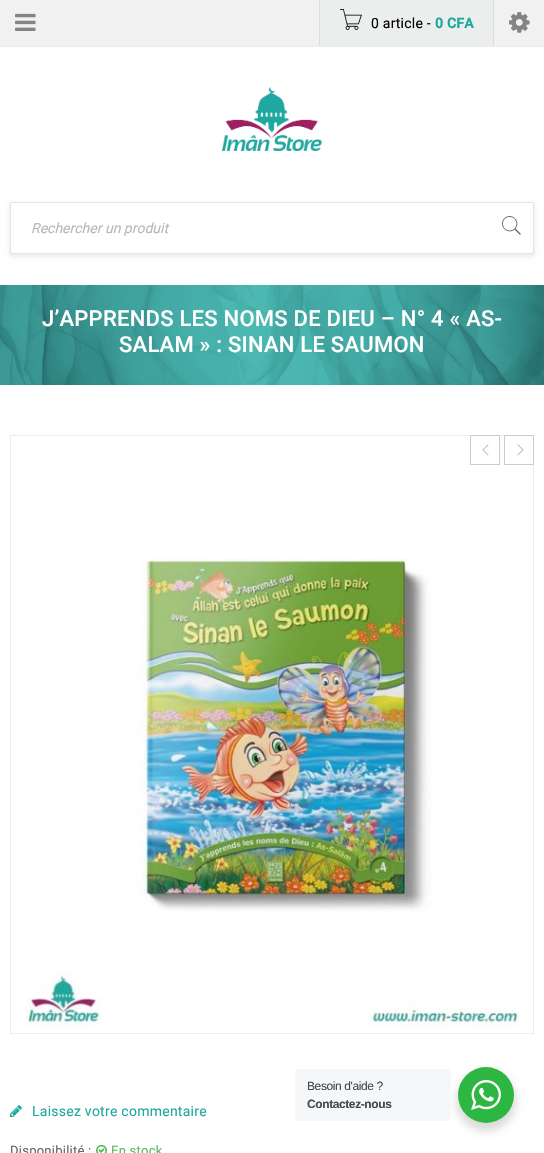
#include "include/core/SkBlurTypes.h"
#include "include/core/SkCanvas.h"
#include "include/core/SkData.h"
#include "include/core/SkFont.h"
#include "include/core/SkFontMgr.h"
#include "include/core/SkImage.h"
#include "include/core/SkMaskFilter.h"
#include "include/core/SkPaint.h"
#include "include/core/SkPathBuilder.h"
#include "include/core/SkTextBlob.h"
#include "include/effects/SkDashPathEffect.h"
#include "include/effects/SkGradientShader.h"
#include "include/utils/SkParsePath.h"

extern sk_sp<SkFontMgr> fontMgr;

void draw(SkCanvas* canvas) {
  SkPaint p;
  p.setAntiAlias(true);
  auto spacedText = [&](const char* s, float x, float y, const SkFont& font, const SkPaint& ink, float letter, float word) {
    std::vector<SkGlyphID> glyphs(font.countText(s, strlen(s), SkTextEncoding::kUTF8));
    std::vector<float> xs(glyphs.size());
    font.textToGlyphs(s, strlen(s), SkTextEncoding::kUTF8, glyphs);
    font.getXPos(glyphs, xs, x);
    float extra = 0;
    for (size_t i = 0; i < glyphs.size(); i++) {
      xs[i] += extra;
      extra += letter + word * (glyphs[i] == font.unicharToGlyph(' '));
    }
    canvas->drawTextBlob(SkTextBlob::MakeFromPosHGlyphs(glyphs, xs, y, font), 0, 0, ink);
  };
  canvas->clear(SK_ColorWHITE);
  p.setColor(SkColorSetRGB(241, 241, 242));
  canvas->drawRect(SkRect::MakeLTRB(0, 0, 544, 46), p);
  p.setColor(SkColorSetRGB(235, 235, 235));
  canvas->drawRect(SkRect::MakeLTRB(0, 46, 544, 47), p);
  canvas->drawImageRect(SkImages::DeferredFromEncodedData(SkData::MakeFromFileName("images/1.png")), SkRect::MakeLTRB(15, 13, 36, 31), SkSamplingOptions());
  p.setColor(SkColorSetRGB(236, 237, 237));
  canvas->drawRect(SkRect::MakeLTRB(320, 0, 493, 46), p);
  p.setColor(SkColorSetRGB(219, 220, 220));
  canvas->drawRect(SkRect::MakeLTRB(493, 0, 494, 46), p);
  canvas->drawRect(SkRect::MakeLTRB(319, 0, 320, 46), p);
  canvas->drawImageRect(SkImages::DeferredFromEncodedData(SkData::MakeFromFileName("images/2.png")), SkRect::MakeLTRB(340, 9, 362, 30), SkSamplingOptions());
  canvas->drawImageRect(SkImages::DeferredFromEncodedData(SkData::MakeFromFileName("images/3.png")), SkRect::MakeLTRB(509, 12, 530, 33), SkSamplingOptions());
  canvas->drawImageRect(SkImages::DeferredFromEncodedData(SkData::MakeFromFileName("images/4.png")), SkRect::MakeLTRB(222, 87, 322, 151), SkSamplingOptions());
  canvas->save();
  canvas->clipPath(SkPathBuilder(SkPathFillType::kEvenOdd).moveTo(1, 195).lineTo(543, 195).lineTo(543, 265).lineTo(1, 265).close().moveTo(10, 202).lineTo(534, 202).lineTo(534, 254).lineTo(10, 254).close().detach(), true);
  p.setColor(SkColorSetARGB(26, 0, 0, 0));
  p.setMaskFilter(SkMaskFilter::MakeBlur(kNormal_SkBlurStyle, 2.5f));
  canvas->drawRect(SkRect::MakeLTRB(10, 204, 534, 256), p);
  p.setMaskFilter(nullptr);
  canvas->restore();
  p.setStyle(SkPaint::kStroke_Style);
  p.setStrokeWidth(1);
  p.setColor(SkColorSetRGB(229, 229, 229));
  canvas->drawRect(SkRect::MakeLTRB(10.5f, 202.5f, 533.5f, 253.5f), p);
  canvas->drawImageRect(SkImages::DeferredFromEncodedData(SkData::MakeFromFileName("images/5.png")), SkRect::MakeLTRB(501, 215, 521, 235), SkSamplingOptions());
  canvas->drawImageRect(SkImages::DeferredFromEncodedData(SkData::MakeFromFileName("images/6.png")), SkRect::MakeLTRB(0, 285, 544, 385), SkSamplingOptions());
  p.setColor(SkColorSetRGB(235, 235, 235));
  canvas->drawRect(SkRect::MakeLTRB(10.5f, 435.5f, 533.5f, 1033.5f), p);
  canvas->drawImageRect(SkImages::DeferredFromEncodedData(SkData::MakeFromFileName("images/7.png")), SkRect::MakeLTRB(26, 558, 520, 1029), SkSamplingOptions());
  p.setColor(SkColorSetRGB(204, 204, 204));
  canvas->drawRect(SkRect::MakeLTRB(470.5f, 435.5f, 499.5f, 464.5f), p);
  canvas->drawImageRect(SkImages::DeferredFromEncodedData(SkData::MakeFromFileName("images/8.png")), SkRect::MakeLTRB(482, 444, 489, 456), SkSamplingOptions());
  canvas->drawRect(SkRect::MakeLTRB(504.5f, 435.5f, 533.5f, 464.5f), p);
  canvas->drawImageRect(SkImages::DeferredFromEncodedData(SkData::MakeFromFileName("images/9.png")), SkRect::MakeLTRB(517, 444, 524, 456), SkSamplingOptions());
  canvas->drawImageRect(SkImages::DeferredFromEncodedData(SkData::MakeFromFileName("images/10.png")), SkRect::MakeLTRB(10, 1105, 22, 1117), SkSamplingOptions());
  canvas->drawImageRect(SkImages::DeferredFromEncodedData(SkData::MakeFromFileName("images/11.png")), SkRect::MakeLTRB(96, 1144, 107, 1153), SkSamplingOptions());
  p.setStyle(SkPaint::kFill_Style);
  p.setColor(SkColorSetARGB(36, 0, 0, 0));
  p.setMaskFilter(SkMaskFilter::MakeBlur(kNormal_SkBlurStyle, 4));
  canvas->drawRoundRect(SkRect::MakeLTRB(456, 1071, 516, 1131), 30, 30, p);
  p.setMaskFilter(nullptr);
  p.setColor(SkColorSetRGB(245, 247, 249));
  canvas->drawRoundRect(SkRect::MakeLTRB(295, 1069, 451, 1121), 4, 4, p);
  p.setColor(SkColorSetRGB(45, 183, 66));
  canvas->drawCircle(486, 1095, 28, p);
  canvas->drawImageRect(SkImages::DeferredFromEncodedData(SkData::MakeFromFileName("images/12.png")), SkRect::MakeLTRB(471, 1080, 501, 1110), SkSamplingOptions());
  SkFont font1(fontMgr->matchFamilyStyle("Roboto", SkFontStyle::Normal()), 14);
  font1.setSubpixel(true);
  p.setColor(SK_ColorBLACK);
  spacedText("0 article -", 371, 28, font1, p, 0.25f, 0);
  SkFont font2(fontMgr->matchFamilyStyle("Roboto", SkFontStyle::Bold()), 14);
  font2.setSubpixel(true);
  p.setColor(SkColorSetRGB(31, 168, 159));
  spacedText("0 CFA", 435, 28, font2, p, 0.25f, 0);
  SkFont font3(fontMgr->matchFamilyStyle("Roboto", SkFontStyle::Italic()), 14);
  font3.setSubpixel(true);
  p.setColor(SkColorSetRGB(184, 184, 184));
  canvas->drawString("Rechercher un produit", 31, 233, font3, p);
  SkFont font4(fontMgr->matchFamilyStyle("Roboto", SkFontStyle(500, SkFontStyle::kNormal_Width, SkFontStyle::kUpright_Slant)), 22);
  font4.setSubpixel(true);
  p.setColor(SK_ColorWHITE);
  spacedText("J’APPRENDS LES NOMS DE DIEU – N° 4 « AS-", 42, 326, font4, p, 0.25f, 0);
  spacedText("SALAM » : SINAN LE SAUMON", 119, 352, font4, p, 0.25f, 0);
  p.setColor(SkColorSetRGB(31, 168, 159));
  spacedText("Laissez votre commentaire", 32, 1116, font1, p, 0.25f, 0);
  SkFont font5(fontMgr->matchFamilyStyle("Roboto", SkFontStyle::Normal()), 13);
  font5.setSubpixel(true);
  p.setColor(SkColorSetRGB(102, 102, 102));
  spacedText("Disponibilité :", 10, 1155, font5, p, 0.25f, 0);
  p.setColor(SkColorSetRGB(92, 184, 92));
  spacedText("En stock", 111, 1155, font5, p, 0.25f, 0);
  SkFont font6(fontMgr->matchFamilyStyle("Liberation Sans", SkFontStyle::Normal()), 12);
  font6.setSubpixel(true);
  p.setColor(SkColorSetRGB(67, 71, 78));
  spacedText("Besoin d'aide ?", 307, 1090, font6, p, -0.4f, 0);
  SkFont font7(fontMgr->matchFamilyStyle("Liberation Sans", SkFontStyle::Bold()), 12);
  font7.setSubpixel(true);
  spacedText("Contactez-nous", 307, 1108, font7, p, -0.4f, 0);
}
